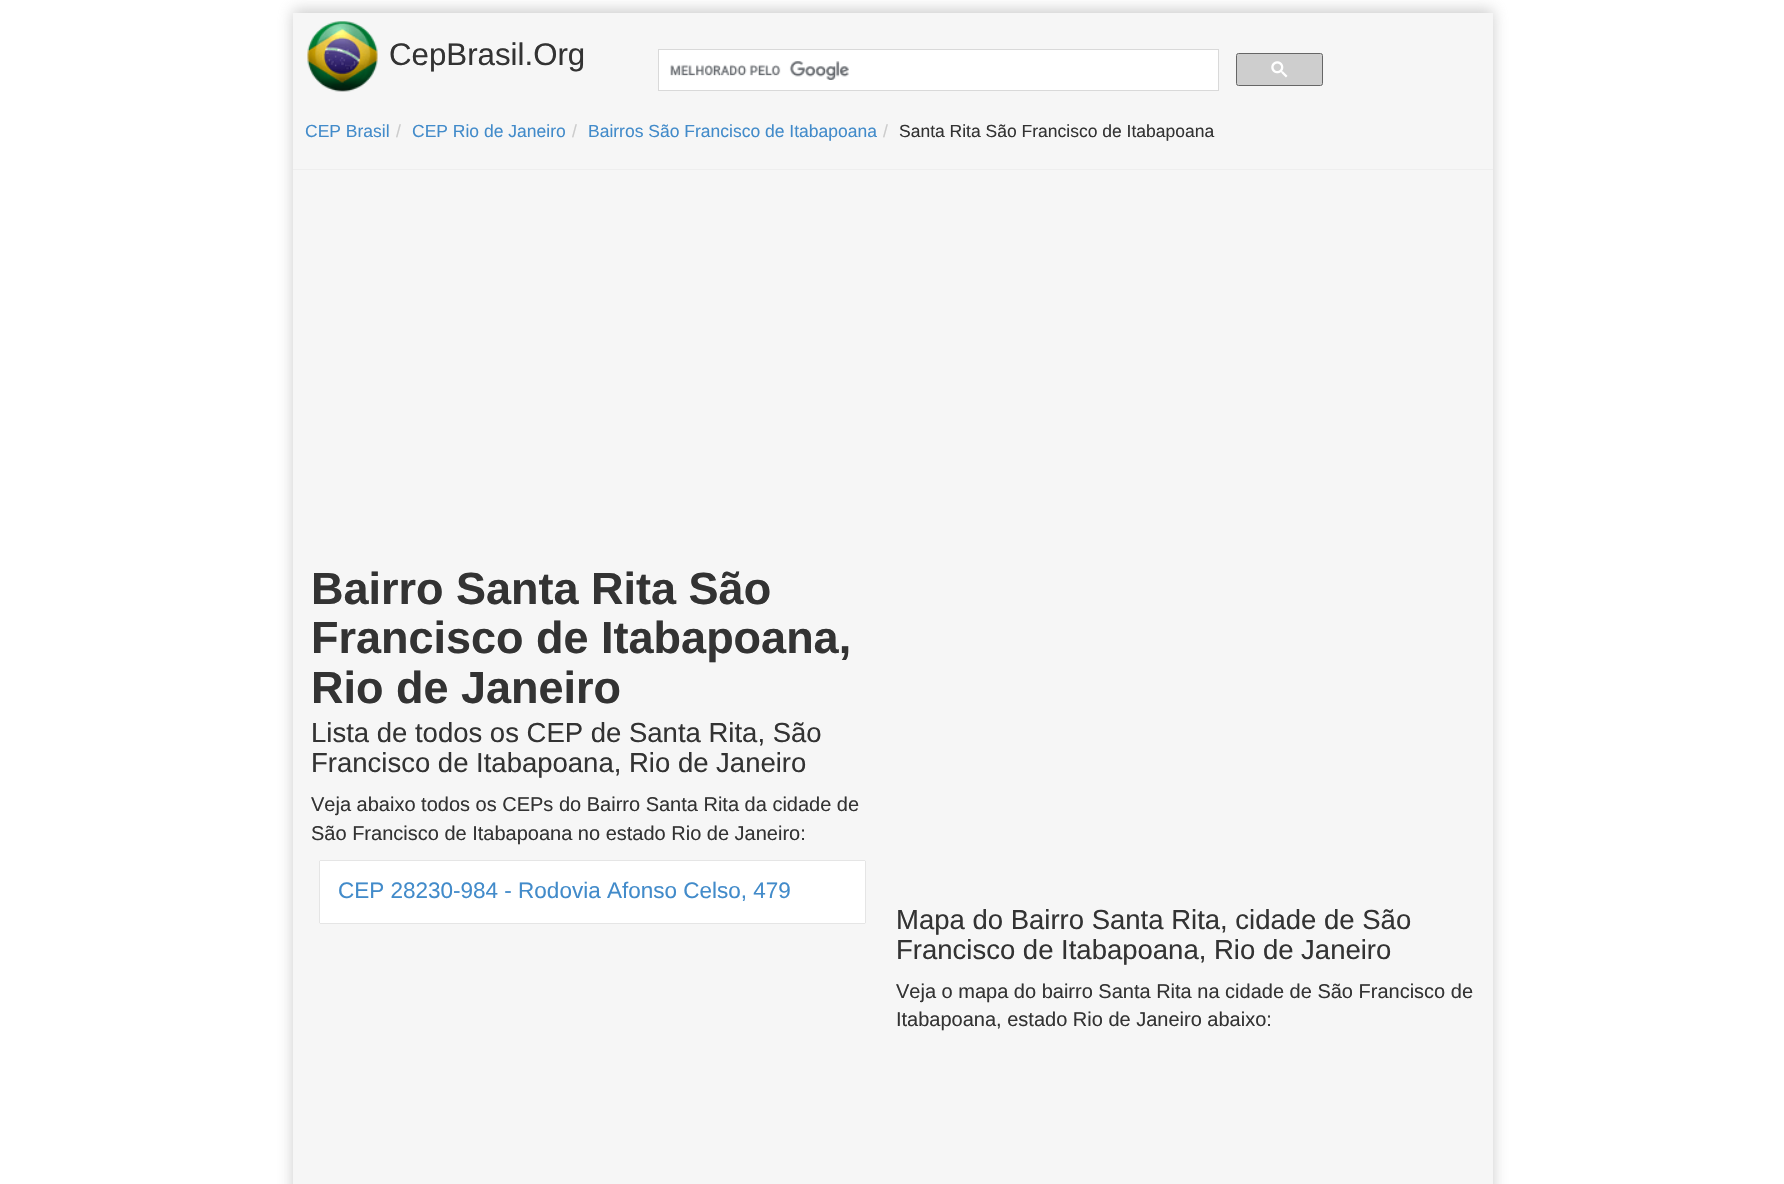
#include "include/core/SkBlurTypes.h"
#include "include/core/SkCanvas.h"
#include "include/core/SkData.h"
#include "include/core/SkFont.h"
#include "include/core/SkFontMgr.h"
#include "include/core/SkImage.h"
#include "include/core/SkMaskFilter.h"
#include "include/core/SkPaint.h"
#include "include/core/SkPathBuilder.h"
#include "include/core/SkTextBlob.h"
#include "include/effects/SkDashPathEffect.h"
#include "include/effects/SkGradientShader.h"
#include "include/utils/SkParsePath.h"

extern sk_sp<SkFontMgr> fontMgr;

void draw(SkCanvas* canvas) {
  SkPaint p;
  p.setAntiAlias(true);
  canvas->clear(SK_ColorWHITE);
  p.setColor(SkColorSetARGB(191, 186, 186, 186));
  p.setMaskFilter(SkMaskFilter::MakeBlur(kNormal_SkBlurStyle, 7));
  canvas->drawRect(SkRect::MakeLTRB(293, 10, 1493, 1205), p);
  p.setMaskFilter(nullptr);
  p.setColor(SkColorSetRGB(246, 246, 246));
  canvas->drawRect(SkRect::MakeLTRB(293, 13, 1493, 1184), p);
  canvas->drawImageRect(SkImages::DeferredFromEncodedData(SkData::MakeFromFileName("images/1.png")), SkRect::MakeLTRB(307, 21, 378, 92), SkSamplingOptions());
  p.setColor(SK_ColorWHITE);
  canvas->drawRect(SkRect::MakeLTRB(658.5f, 49.5f, 1218.5f, 90.5f), p);
  p.setStyle(SkPaint::kStroke_Style);
  p.setStrokeWidth(1);
  p.setColor(SkColorSetRGB(217, 217, 217));
  canvas->drawRect(SkRect::MakeLTRB(658.5f, 49.5f, 1218.5f, 90.5f), p);
  canvas->drawImageRect(SkImages::DeferredFromEncodedData(SkData::MakeFromFileName("images/2.png")), SkRect::MakeLTRB(670, 61, 849, 80), SkSamplingOptions());
  p.setStyle(SkPaint::kFill_Style);
  p.setColor(SkColorSetRGB(206, 206, 206));
  canvas->drawRoundRect(SkRect::MakeLTRB(1236.5f, 53.5f, 1322.5f, 85.5f), 2, 2, p);
  p.setStyle(SkPaint::kStroke_Style);
  p.setColor(SkColorSetRGB(102, 102, 102));
  canvas->drawRoundRect(SkRect::MakeLTRB(1236.5f, 53.5f, 1322.5f, 85.5f), 2, 2, p);
  canvas->drawImageRect(SkImages::DeferredFromEncodedData(SkData::MakeFromFileName("images/3.png")), SkRect::MakeLTRB(1271, 61, 1288, 78), SkSamplingOptions());
  p.setStyle(SkPaint::kFill_Style);
  p.setColor(SkColorSetRGB(238, 238, 238));
  canvas->drawRect(SkRect::MakeLTRB(293, 169, 1493, 170), p);
  p.setColor(SkColorSetARGB(102, 0, 0, 0));
  p.setMaskFilter(SkMaskFilter::MakeBlur(kNormal_SkBlurStyle, 0.5f));
  canvas->drawRect(SkRect::MakeLTRB(320, 861, 865, 923), p);
  p.setMaskFilter(nullptr);
  p.setColor(SK_ColorWHITE);
  canvas->drawRect(SkRect::MakeLTRB(320, 861, 865, 923), p);
  SkFont font1(fontMgr->matchFamilyStyle("Liberation Sans", SkFontStyle::Normal()), 31.25f);
  font1.setSubpixel(true);
  p.setColor(SkColorSetRGB(51, 51, 51));
  canvas->drawString("CepBrasil.Org", 389, 65, font1, p);
  SkFont font2(fontMgr->matchFamilyStyle("Liberation Sans", SkFontStyle::Normal()), 17.5f);
  font2.setSubpixel(true);
  p.setColor(SkColorSetRGB(66, 139, 202));
  canvas->drawString("CEP Brasil", 305, 137, font2, p);
  p.setColor(SkColorSetRGB(204, 204, 204));
  canvas->drawString("/", 396, 137, font2, p);
  p.setColor(SkColorSetRGB(66, 139, 202));
  canvas->drawString("CEP Rio de Janeiro", 412, 137, font2, p);
  p.setColor(SkColorSetRGB(204, 204, 204));
  canvas->drawString("/", 572, 137, font2, p);
  p.setColor(SkColorSetRGB(66, 139, 202));
  canvas->drawString("Bairros São Francisco de Itabapoana", 588, 137, font2, p);
  p.setColor(SkColorSetRGB(204, 204, 204));
  canvas->drawString("/", 883, 137, font2, p);
  p.setColor(SkColorSetRGB(51, 51, 51));
  canvas->drawString("Santa Rita São Francisco de Itabapoana", 899, 137, font2, p);
  SkFont font3(fontMgr->matchFamilyStyle("Liberation Sans", SkFontStyle::Bold()), 45);
  font3.setSubpixel(true);
  canvas->drawString("Bairro Santa Rita São", 311, 604, font3, p);
  canvas->drawString("Francisco de Itabapoana,", 311, 653, font3, p);
  canvas->drawString("Rio de Janeiro", 311, 703, font3, p);
  SkFont font4(fontMgr->matchFamilyStyle("Liberation Sans", SkFontStyle::Normal()), 27.5f);
  font4.setSubpixel(true);
  canvas->drawString("Lista de todos os CEP de Santa Rita, São", 311, 742, font4, p);
  canvas->drawString("Francisco de Itabapoana, Rio de Janeiro", 311, 772, font4, p);
  SkFont font5(fontMgr->matchFamilyStyle("Liberation Sans", SkFontStyle::Normal()), 20);
  font5.setSubpixel(true);
  canvas->drawString("Veja abaixo todos os CEPs do Bairro Santa Rita da cidade de", 311, 811, font5, p);
  canvas->drawString("São Francisco de Itabapoana no estado Rio de Janeiro:", 311, 840, font5, p);
  SkFont font6(fontMgr->matchFamilyStyle("Liberation Sans", SkFontStyle::Normal()), 22.5f);
  font6.setSubpixel(true);
  p.setColor(SkColorSetRGB(66, 139, 202));
  canvas->drawString("CEP 28230-984 - Rodovia Afonso Celso, 479", 338, 898, font6, p);
  p.setColor(SkColorSetRGB(51, 51, 51));
  canvas->drawString("Mapa do Bairro Santa Rita, cidade de São", 896, 929, font4, p);
  canvas->drawString("Francisco de Itabapoana, Rio de Janeiro", 896, 959, font4, p);
  canvas->drawString("Veja o mapa do bairro Santa Rita na cidade de São Francisco de", 896, 998, font5, p);
  canvas->drawString("Itabapoana, estado Rio de Janeiro abaixo:", 896, 1026, font5, p);
}
